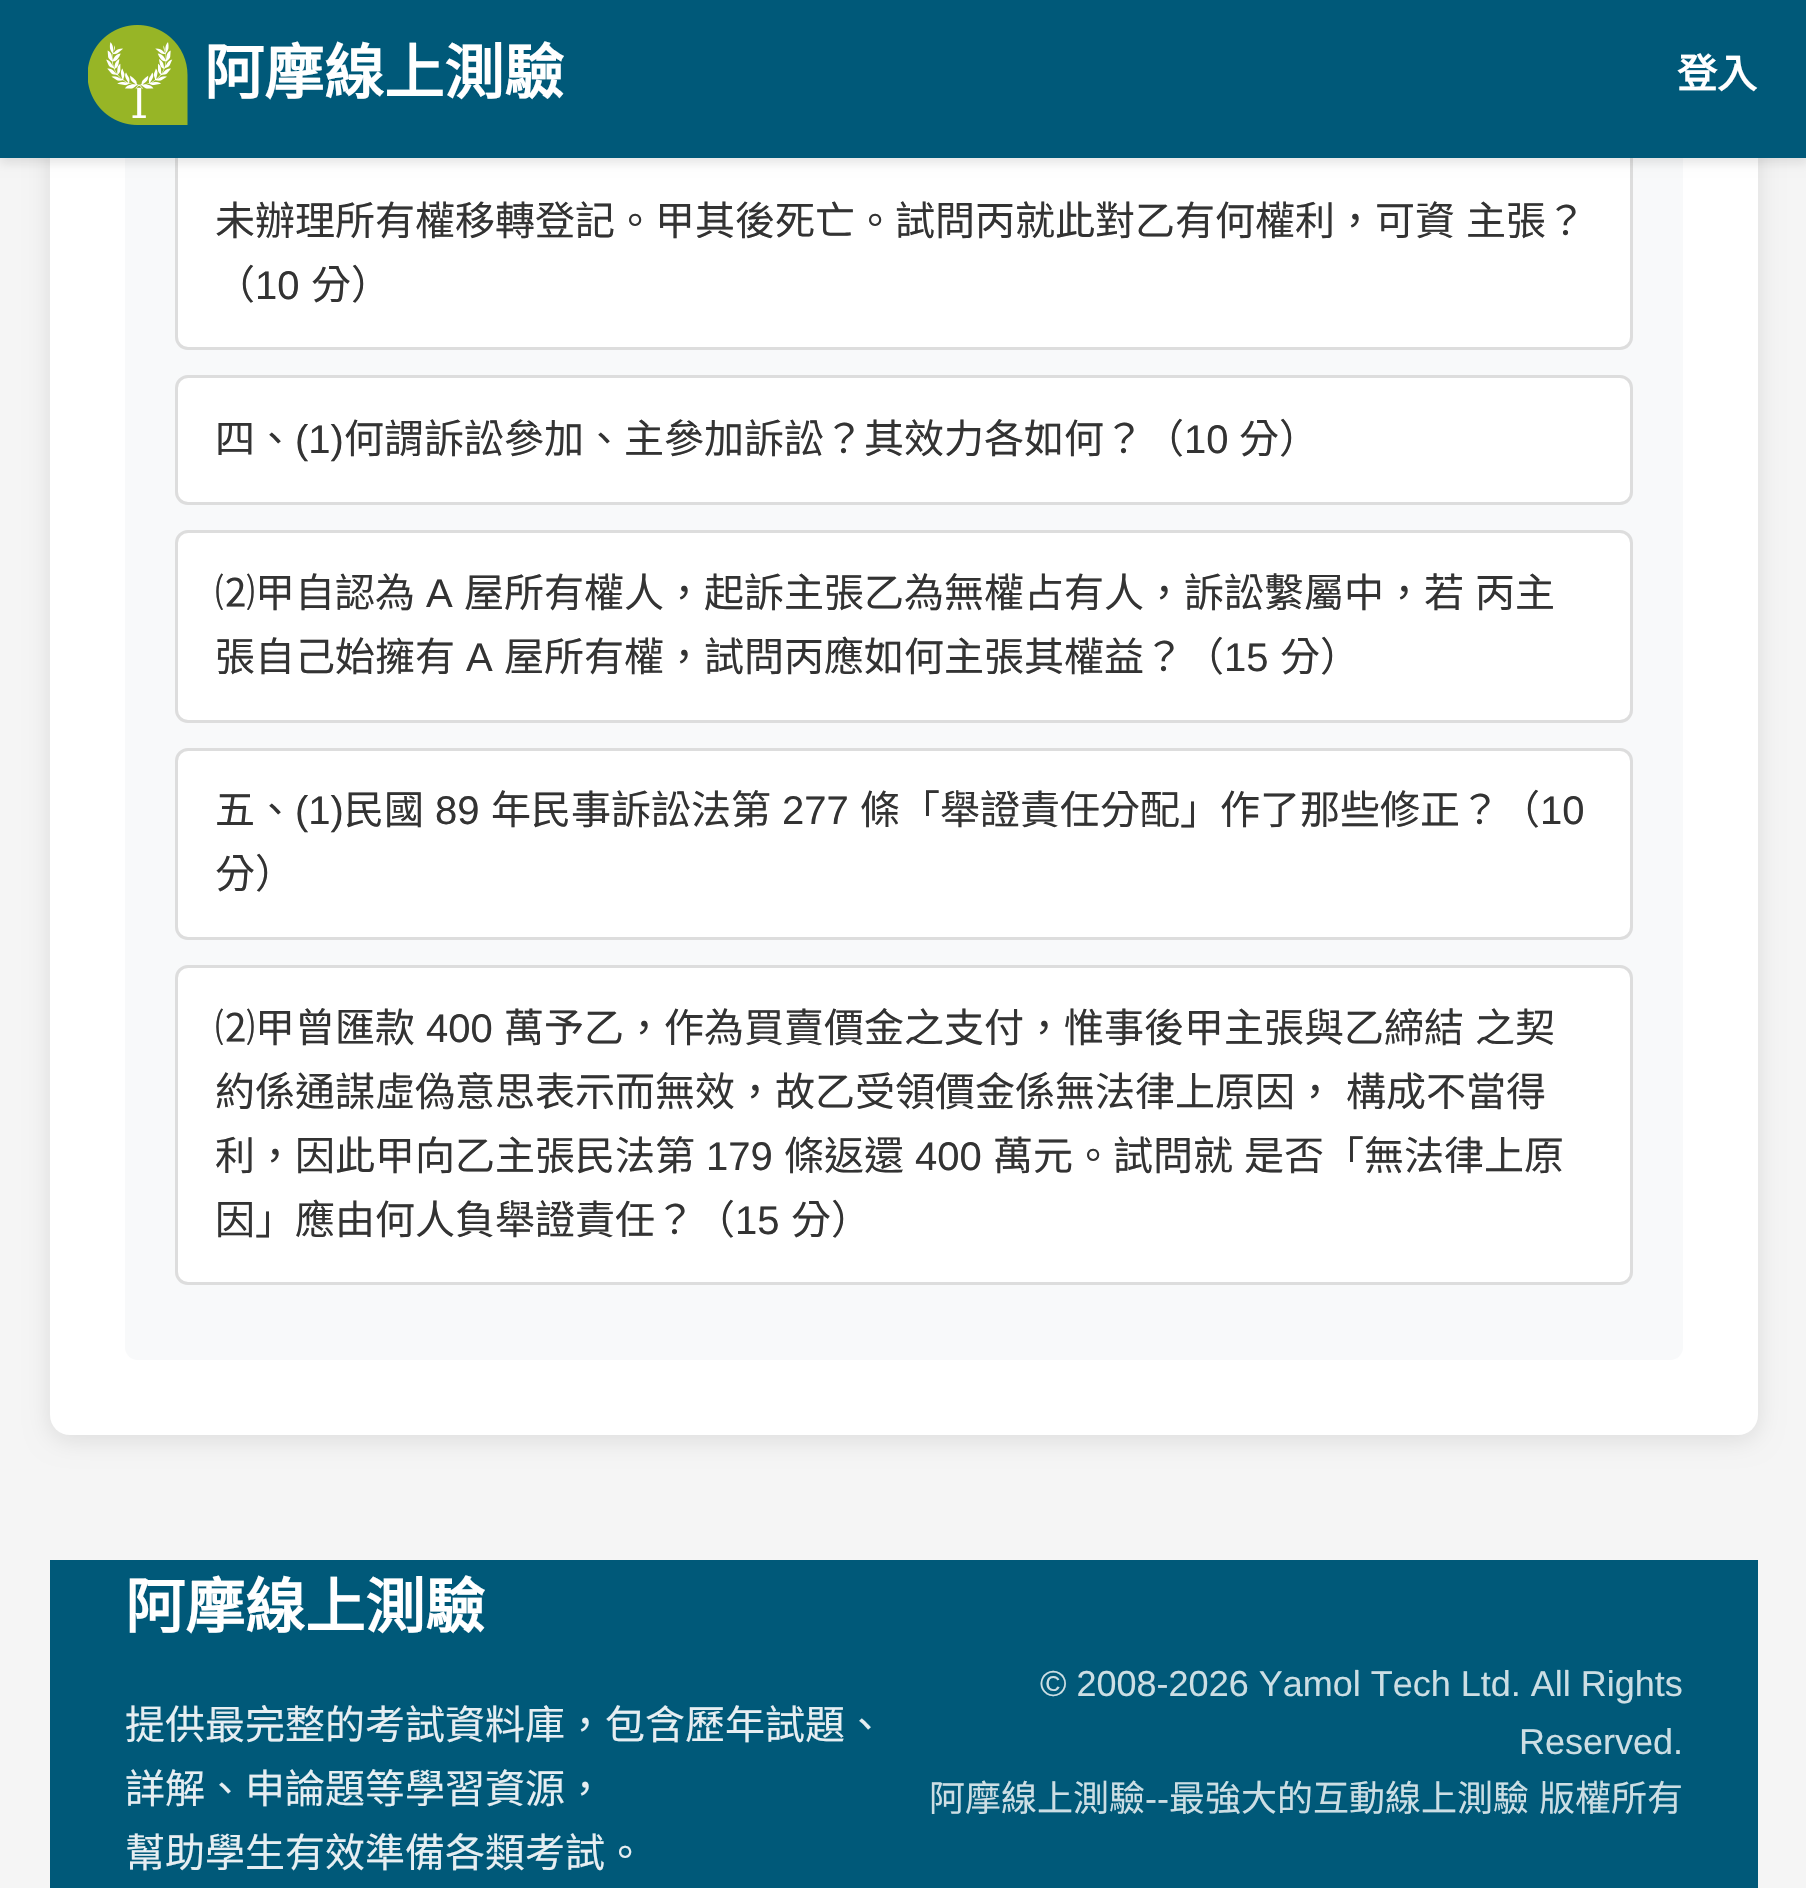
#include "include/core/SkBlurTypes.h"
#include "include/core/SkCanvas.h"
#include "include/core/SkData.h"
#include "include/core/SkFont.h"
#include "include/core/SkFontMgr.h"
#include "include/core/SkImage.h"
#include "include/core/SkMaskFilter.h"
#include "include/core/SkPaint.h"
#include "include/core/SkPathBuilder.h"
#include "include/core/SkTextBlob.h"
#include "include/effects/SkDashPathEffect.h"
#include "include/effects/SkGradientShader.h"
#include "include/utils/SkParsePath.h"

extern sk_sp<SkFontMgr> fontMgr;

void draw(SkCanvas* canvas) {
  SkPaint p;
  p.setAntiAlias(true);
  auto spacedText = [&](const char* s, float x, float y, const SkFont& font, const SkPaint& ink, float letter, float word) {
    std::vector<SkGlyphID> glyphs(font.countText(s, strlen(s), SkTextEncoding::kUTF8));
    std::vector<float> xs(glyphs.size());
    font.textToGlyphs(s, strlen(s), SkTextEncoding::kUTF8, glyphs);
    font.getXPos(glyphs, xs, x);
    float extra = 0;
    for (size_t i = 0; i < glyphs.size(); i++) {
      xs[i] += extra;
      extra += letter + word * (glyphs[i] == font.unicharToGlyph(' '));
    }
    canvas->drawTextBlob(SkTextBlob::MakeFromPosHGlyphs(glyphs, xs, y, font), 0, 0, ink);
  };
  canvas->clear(SkColorSetRGB(245, 245, 245));
  p.setColor(SkColorSetARGB(26, 0, 0, 0));
  p.setMaskFilter(SkMaskFilter::MakeBlur(kNormal_SkBlurStyle, 12.5f));
  canvas->drawRoundRect(SkRect::MakeLTRB(50, -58, 1758, 1440), 20, 20, p);
  p.setMaskFilter(nullptr);
  p.setColor(SK_ColorWHITE);
  canvas->drawRoundRect(SkRect::MakeLTRB(50, -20, 1758, 1435), 20, 20, p);
  p.setColor(SkColorSetRGB(248, 249, 250));
  canvas->drawRoundRect(SkRect::MakeLTRB(125, -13, 1683, 1360), 13, 13, p);
  p.setColor(SK_ColorWHITE);
  canvas->drawRoundRect(SkRect::MakeLTRB(176.5f, 94.5f, 1631.5f, 348.5f), 11.5f, 11.5f, p);
  p.setStyle(SkPaint::kStroke_Style);
  p.setStrokeWidth(3);
  p.setColor(SkColorSetRGB(221, 221, 221));
  canvas->drawRoundRect(SkRect::MakeLTRB(176.5f, 94.5f, 1631.5f, 348.5f), 11.5f, 11.5f, p);
  p.setStyle(SkPaint::kFill_Style);
  p.setColor(SkColorSetARGB(26, 0, 0, 0));
  p.setMaskFilter(SkMaskFilter::MakeBlur(kNormal_SkBlurStyle, 5));
  canvas->drawRect(SkRect::MakeLTRB(0, 5, 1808, 163), p);
  p.setMaskFilter(nullptr);
  p.setColor(SkColorSetRGB(0, 89, 121));
  canvas->drawRect(SkRect::MakeLTRB(0, 0, 1806, 158), p);
  canvas->drawImageRect(SkImages::DeferredFromEncodedData(SkData::MakeFromFileName("images/1.png")), SkRect::MakeLTRB(88, 25, 188, 125), SkSamplingOptions());
  p.setColor(SK_ColorWHITE);
  canvas->drawRoundRect(SkRect::MakeLTRB(176.5f, 376.5f, 1631.5f, 503.5f), 11.5f, 11.5f, p);
  p.setStyle(SkPaint::kStroke_Style);
  p.setColor(SkColorSetRGB(221, 221, 221));
  canvas->drawRoundRect(SkRect::MakeLTRB(176.5f, 376.5f, 1631.5f, 503.5f), 11.5f, 11.5f, p);
  p.setStyle(SkPaint::kFill_Style);
  p.setColor(SK_ColorWHITE);
  canvas->drawRoundRect(SkRect::MakeLTRB(176.5f, 531.5f, 1631.5f, 721.5f), 11.5f, 11.5f, p);
  p.setStyle(SkPaint::kStroke_Style);
  p.setColor(SkColorSetRGB(221, 221, 221));
  canvas->drawRoundRect(SkRect::MakeLTRB(176.5f, 531.5f, 1631.5f, 721.5f), 11.5f, 11.5f, p);
  p.setStyle(SkPaint::kFill_Style);
  p.setColor(SK_ColorWHITE);
  canvas->drawRoundRect(SkRect::MakeLTRB(176.5f, 749.5f, 1631.5f, 938.5f), 11.5f, 11.5f, p);
  p.setStyle(SkPaint::kStroke_Style);
  p.setColor(SkColorSetRGB(221, 221, 221));
  canvas->drawRoundRect(SkRect::MakeLTRB(176.5f, 749.5f, 1631.5f, 938.5f), 11.5f, 11.5f, p);
  p.setStyle(SkPaint::kFill_Style);
  p.setColor(SK_ColorWHITE);
  canvas->drawRoundRect(SkRect::MakeLTRB(176.5f, 966.5f, 1631.5f, 1283.5f), 11.5f, 11.5f, p);
  p.setStyle(SkPaint::kStroke_Style);
  p.setColor(SkColorSetRGB(221, 221, 221));
  canvas->drawRoundRect(SkRect::MakeLTRB(176.5f, 966.5f, 1631.5f, 1283.5f), 11.5f, 11.5f, p);
  p.setStyle(SkPaint::kFill_Style);
  p.setColor(SkColorSetRGB(0, 89, 121));
  canvas->drawRect(SkRect::MakeLTRB(50, 1560, 1758, 1888), p);
  SkFont font1(fontMgr->matchFamilyStyle("Noto Sans CJK TC", SkFontStyle::Bold()), 60);
  font1.setSubpixel(true);
  p.setColor(SK_ColorWHITE);
  canvas->drawString("阿摩線上測驗", 204, 94, font1, p);
  SkFont font2(fontMgr->matchFamilyStyle("Noto Sans CJK TC", SkFontStyle::Bold()), 40);
  font2.setSubpixel(true);
  canvas->drawString("登入", 1677, 88, font2, p);
  SkFont font3(fontMgr->matchFamilyStyle("Noto Sans CJK TC", SkFontStyle::Normal()), 40);
  font3.setSubpixel(true);
  p.setColor(SkColorSetRGB(51, 51, 51));
  canvas->drawString("未辦理所有權移轉登記。甲其後死亡。試問丙就此對乙有何權利，可資", 215, 235, font3, p);
  canvas->drawString("主張？", 1466, 235, font3, p);
  canvas->drawString("（", 215, 299, font3, p);
  SkFont font4(fontMgr->matchFamilyStyle("Liberation Sans", SkFontStyle::Normal()), 40);
  font4.setSubpixel(true);
  canvas->drawString("10", 255, 299, font4, p);
  canvas->drawString("分）", 311, 299, font3, p);
  canvas->drawString("四、", 215, 453, font3, p);
  canvas->drawString("(1)", 295, 453, font4, p);
  canvas->drawString("何謂訴訟參加、主參加訴訟？其效力各如何？（", 344, 453, font3, p);
  canvas->drawString("10", 1184, 453, font4, p);
  canvas->drawString("分）", 1239, 453, font3, p);
  canvas->drawString("⑵甲自認為", 215, 607, font3, p);
  canvas->drawString("A", 426, 607, font4, p);
  canvas->drawString("屋所有權人，起訴主張乙為無權占有人，訴訟繫屬中，若", 464, 607, font3, p);
  canvas->drawString("丙主", 1475, 607, font3, p);
  canvas->drawString("張自己始擁有", 215, 671, font3, p);
  canvas->drawString("A", 466, 671, font4, p);
  canvas->drawString("屋所有權，試問丙應如何主張其權益？（", 504, 671, font3, p);
  canvas->drawString("15", 1224, 671, font4, p);
  canvas->drawString("分）", 1280, 671, font3, p);
  canvas->drawString("五、", 215, 824, font3, p);
  canvas->drawString("(1)", 295, 824, font4, p);
  canvas->drawString("民國", 344, 824, font3, p);
  canvas->drawString("89", 435, 824, font4, p);
  canvas->drawString("年民事訴訟法第", 491, 824, font3, p);
  canvas->drawString("277", 782, 824, font4, p);
  canvas->drawString("條「舉證責任分配」作了那些修正？（", 860, 824, font3, p);
  canvas->drawString("10", 1540, 824, font4, p);
  canvas->drawString("分）", 215, 888, font3, p);
  canvas->drawString("⑵甲曾匯款", 215, 1042, font3, p);
  canvas->drawString("400", 426, 1042, font4, p);
  canvas->drawString("萬予乙，作為買賣價金之支付，惟事後甲主張與乙締結", 504, 1042, font3, p);
  canvas->drawString("之契", 1475, 1042, font3, p);
  canvas->drawString("約係通謀虛偽意思表示而無效，故乙受領價金係無法律上原因，", 215, 1106, font3, p);
  canvas->drawString("構成不當得", 1346, 1106, font3, p);
  canvas->drawString("利，因此甲向乙主張民法第", 215, 1170, font3, p);
  canvas->drawString("179", 706, 1170, font4, p);
  canvas->drawString("條返還", 784, 1170, font3, p);
  canvas->drawString("400", 915, 1170, font4, p);
  canvas->drawString("萬元。試問就", 993, 1170, font3, p);
  canvas->drawString("是否「無法律上原", 1244, 1170, font3, p);
  canvas->drawString("因」應由何人負舉證責任？（", 215, 1234, font3, p);
  canvas->drawString("15", 735, 1234, font4, p);
  canvas->drawString("分）", 791, 1234, font3, p);
  p.setColor(SK_ColorWHITE);
  canvas->drawString("阿摩線上測驗", 125, 1628, font1, p);
  p.setColor(SkColorSetRGB(230, 238, 242));
  canvas->drawString("提供最完整的考試資料庫，包含歷年試題、", 125, 1739, font3, p);
  canvas->drawString("詳解、申論題等學習資源，", 125, 1803, font3, p);
  canvas->drawString("幫助學生有效準備各類考試。", 125, 1867, font3, p);
  SkFont font5(fontMgr->matchFamilyStyle("Liberation Sans", SkFontStyle::Normal()), 36);
  font5.setSubpixel(true);
  p.setColor(SkColorSetRGB(204, 222, 228));
  canvas->drawString("© 2008-2026 Yamol Tech Ltd. All Rights", 1040, 1696, font5, p);
  canvas->drawString("Reserved.", 1519, 1754, font5, p);
  SkFont font6(fontMgr->matchFamilyStyle("Noto Sans CJK TC", SkFontStyle::Normal()), 36);
  font6.setSubpixel(true);
  canvas->drawString("阿摩線上測驗", 929, 1811, font6, p);
  canvas->drawString("--", 1145, 1811, font5, p);
  spacedText("最強大的互動線上測驗 版權所有", 1169, 1811, font6, p, 0, 2);
}
